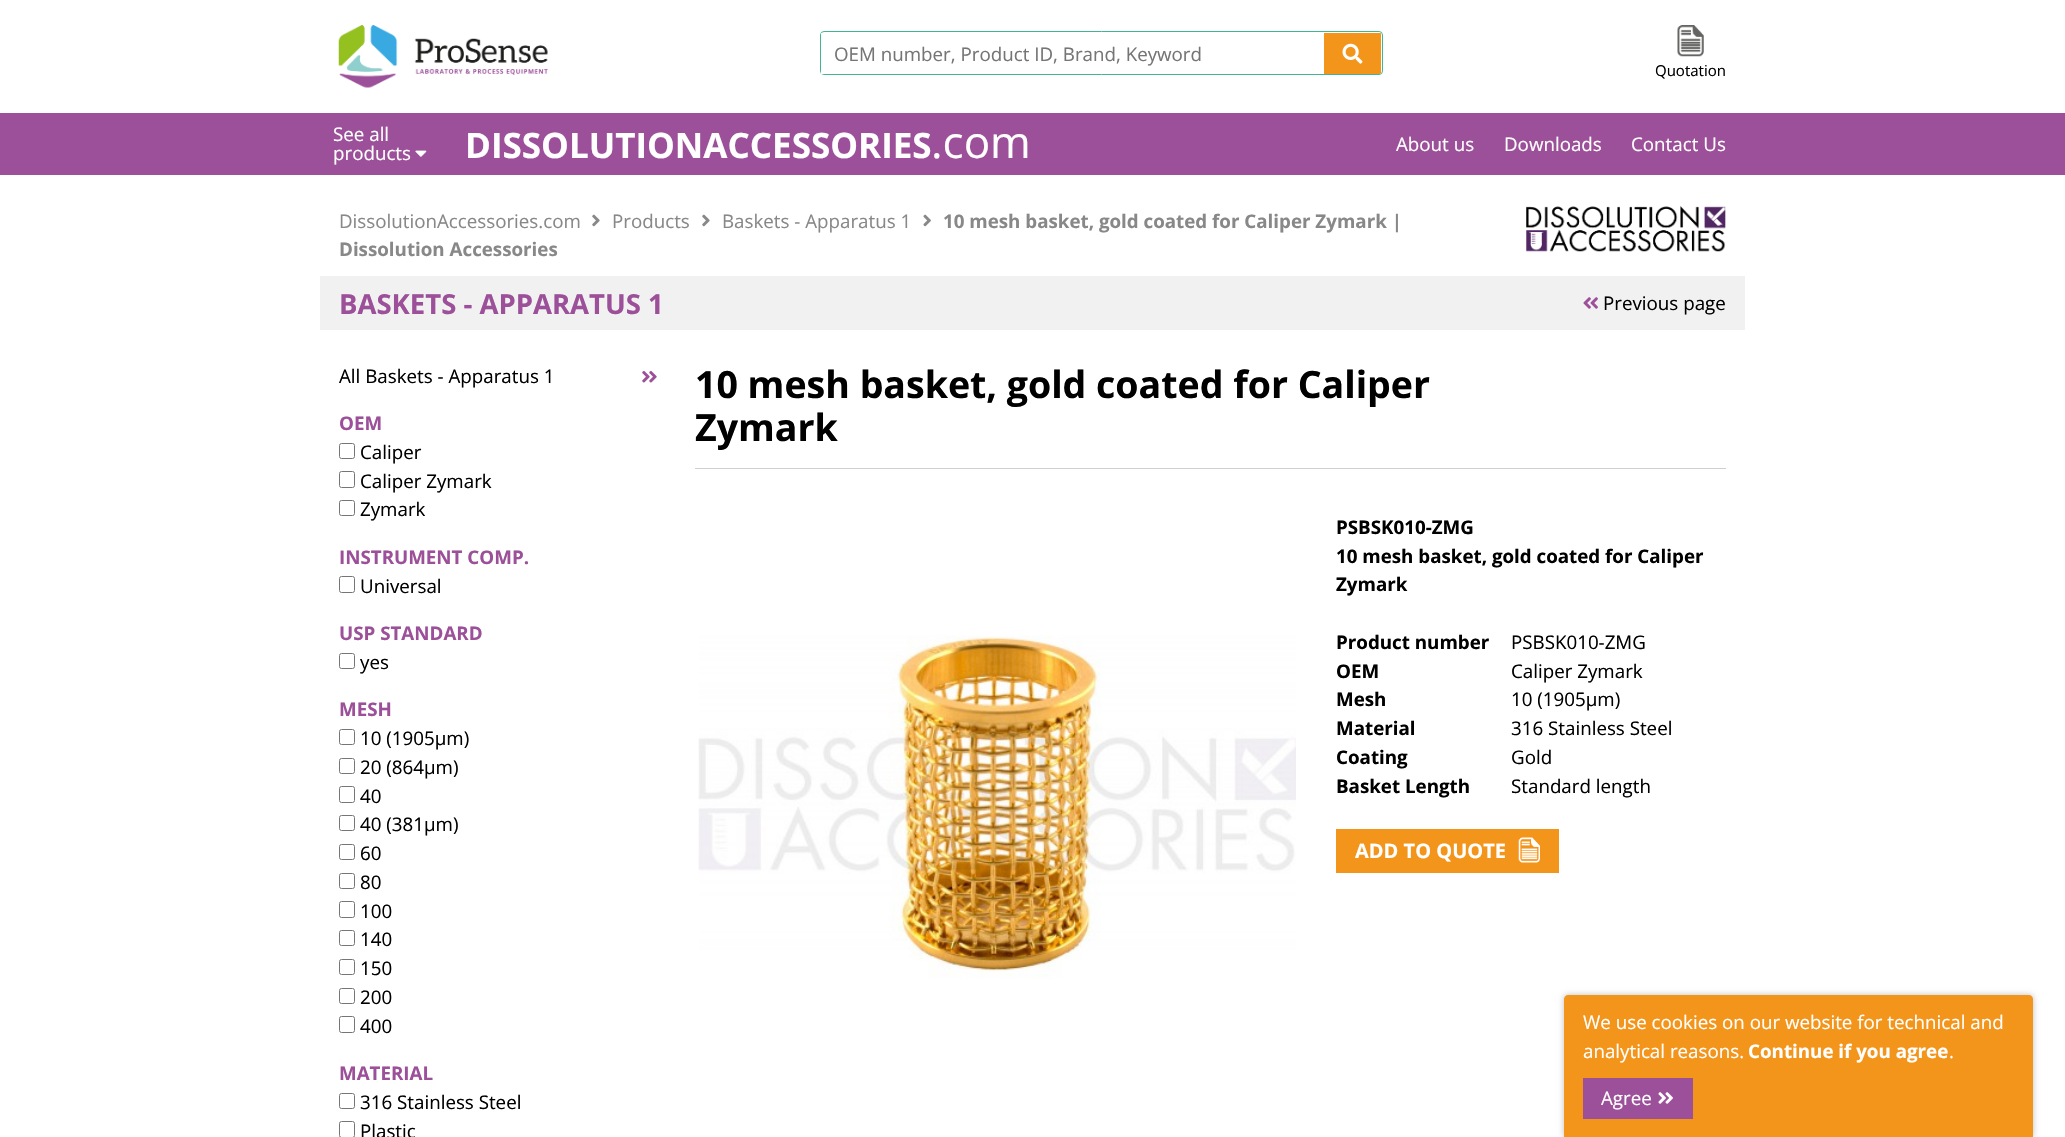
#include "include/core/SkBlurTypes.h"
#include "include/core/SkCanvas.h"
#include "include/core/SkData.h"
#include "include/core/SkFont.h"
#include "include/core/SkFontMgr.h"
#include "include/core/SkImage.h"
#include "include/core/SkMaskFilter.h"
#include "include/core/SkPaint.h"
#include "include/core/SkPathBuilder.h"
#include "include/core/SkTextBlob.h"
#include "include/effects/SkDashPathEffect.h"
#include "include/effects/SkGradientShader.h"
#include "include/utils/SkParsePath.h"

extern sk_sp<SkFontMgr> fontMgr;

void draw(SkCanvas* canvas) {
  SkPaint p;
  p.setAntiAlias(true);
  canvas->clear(SK_ColorWHITE);
  canvas->drawImageRect(SkImages::DeferredFromEncodedData(SkData::MakeFromFileName("images/1.png")), SkRect::MakeLTRB(338, 25, 548, 88), SkSamplingOptions());
  p.setStyle(SkPaint::kStroke_Style);
  p.setStrokeWidth(1);
  p.setColor(SkColorSetRGB(66, 180, 148));
  canvas->drawRoundRect(SkRect::MakeLTRB(820.5f, 31.5f, 1382.5f, 74.5f), 3.5f, 3.5f, p);
  p.setStyle(SkPaint::kFill_Style);
  p.setColor(SK_ColorWHITE);
  canvas->drawRect(SkRect::MakeLTRB(821, 33, 1381, 74), p);
  p.setColor(SkColorSetRGB(244, 149, 27));
  canvas->drawPath(SkPathBuilder().moveTo(1324, 33).lineTo(1380, 33).cubicTo(1380.5f, 33, 1381, 33.5f, 1381, 34).lineTo(1381, 73).cubicTo(1381, 73.5f, 1380.5f, 74, 1380, 74).lineTo(1324, 74).close().detach(), p);
  canvas->drawImageRect(SkImages::DeferredFromEncodedData(SkData::MakeFromFileName("images/2.png")), SkRect::MakeLTRB(1342, 43, 1363, 64), SkSamplingOptions());
  canvas->drawImageRect(SkImages::DeferredFromEncodedData(SkData::MakeFromFileName("images/3.png")), SkRect::MakeLTRB(1677, 25, 1704, 57), SkSamplingOptions());
  p.setColor(SkColorSetRGB(156, 80, 153));
  canvas->drawRect(SkRect::MakeLTRB(0, 113, 2065, 175), p);
  canvas->drawImageRect(SkImages::DeferredFromEncodedData(SkData::MakeFromFileName("images/4.png")), SkRect::MakeLTRB(415, 150, 427, 157), SkSamplingOptions());
  canvas->drawImageRect(SkImages::DeferredFromEncodedData(SkData::MakeFromFileName("images/5.png")), SkRect::MakeLTRB(592, 214, 600, 227), SkSamplingOptions());
  canvas->drawImageRect(SkImages::DeferredFromEncodedData(SkData::MakeFromFileName("images/5.png")), SkRect::MakeLTRB(702, 214, 710, 227), SkSamplingOptions());
  canvas->drawImageRect(SkImages::DeferredFromEncodedData(SkData::MakeFromFileName("images/6.png")), SkRect::MakeLTRB(923, 214, 931, 227), SkSamplingOptions());
  canvas->drawImageRect(SkImages::DeferredFromEncodedData(SkData::MakeFromFileName("images/7.png")), SkRect::MakeLTRB(1526, 206, 1726, 252), SkSamplingOptions());
  p.setColor(SkColorSetRGB(241, 241, 241));
  canvas->drawRect(SkRect::MakeLTRB(320, 276, 1745, 330), p);
  canvas->drawImageRect(SkImages::DeferredFromEncodedData(SkData::MakeFromFileName("images/8.png")), SkRect::MakeLTRB(1583, 297, 1598, 309), SkSamplingOptions());
  canvas->drawImageRect(SkImages::DeferredFromEncodedData(SkData::MakeFromFileName("images/9.png")), SkRect::MakeLTRB(642, 370, 657, 383), SkSamplingOptions());
  p.setStyle(SkPaint::kStroke_Style);
  p.setColor(SkColorSetRGB(118, 118, 118));
  canvas->drawRoundRect(SkRect::MakeLTRB(339.5f, 443.5f, 354.5f, 458.5f), 2, 2, p);
  canvas->drawRoundRect(SkRect::MakeLTRB(339.5f, 471.5f, 354.5f, 487.5f), 2, 2, p);
  canvas->drawRoundRect(SkRect::MakeLTRB(339.5f, 500.5f, 354.5f, 515.5f), 2, 2, p);
  canvas->drawRoundRect(SkRect::MakeLTRB(339.5f, 576.5f, 354.5f, 592.5f), 2, 2, p);
  canvas->drawRoundRect(SkRect::MakeLTRB(339.5f, 653.5f, 354.5f, 668.5f), 2, 2, p);
  canvas->drawRoundRect(SkRect::MakeLTRB(339.5f, 729.5f, 354.5f, 744.5f), 2, 2, p);
  canvas->drawRoundRect(SkRect::MakeLTRB(339.5f, 758.5f, 354.5f, 773.5f), 2, 2, p);
  canvas->drawRoundRect(SkRect::MakeLTRB(339.5f, 786.5f, 354.5f, 802.5f), 2, 2, p);
  canvas->drawRoundRect(SkRect::MakeLTRB(339.5f, 815.5f, 354.5f, 830.5f), 2, 2, p);
  canvas->drawRoundRect(SkRect::MakeLTRB(339.5f, 844.5f, 354.5f, 859.5f), 2, 2, p);
  canvas->drawRoundRect(SkRect::MakeLTRB(339.5f, 873.5f, 354.5f, 888.5f), 2, 2, p);
  canvas->drawRoundRect(SkRect::MakeLTRB(339.5f, 901.5f, 354.5f, 917.5f), 2, 2, p);
  canvas->drawRoundRect(SkRect::MakeLTRB(339.5f, 930.5f, 354.5f, 945.5f), 2, 2, p);
  canvas->drawRoundRect(SkRect::MakeLTRB(339.5f, 959.5f, 354.5f, 974.5f), 2, 2, p);
  canvas->drawRoundRect(SkRect::MakeLTRB(339.5f, 988.5f, 354.5f, 1003.5f), 2, 2, p);
  canvas->drawRoundRect(SkRect::MakeLTRB(339.5f, 1016.5f, 354.5f, 1032.5f), 2, 2, p);
  canvas->drawRoundRect(SkRect::MakeLTRB(339.5f, 1093.5f, 354.5f, 1108.5f), 2, 2, p);
  canvas->drawRoundRect(SkRect::MakeLTRB(339.5f, 1121.5f, 354.5f, 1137.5f), 2, 2, p);
  p.setStyle(SkPaint::kFill_Style);
  p.setColor(SkColorSetRGB(208, 208, 208));
  canvas->drawRect(SkRect::MakeLTRB(695, 468, 1726, 469), p);
  canvas->drawImageRect(SkImages::DeferredFromEncodedData(SkData::MakeFromFileName("images/10.png")), SkRect::MakeLTRB(698, 635, 1296, 979), SkSamplingOptions());
  p.setColor(SkColorSetRGB(244, 149, 27));
  canvas->drawRect(SkRect::MakeLTRB(1336, 829, 1559, 873), p);
  canvas->drawImageRect(SkImages::DeferredFromEncodedData(SkData::MakeFromFileName("images/11.png")), SkRect::MakeLTRB(1518, 837, 1540, 863), SkSamplingOptions());
  p.setColor(SkColorSetARGB(64, 0, 0, 0));
  p.setMaskFilter(SkMaskFilter::MakeBlur(kNormal_SkBlurStyle, 3));
  canvas->drawRoundRect(SkRect::MakeLTRB(1564, 995, 2033, 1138), 4, 4, p);
  p.setMaskFilter(nullptr);
  p.setColor(SkColorSetRGB(244, 149, 27));
  canvas->drawPath(SkPathBuilder().moveTo(1568, 995).lineTo(2029, 995).cubicTo(2031, 995, 2033, 997, 2033, 999).lineTo(2033, 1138).lineTo(1564, 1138).lineTo(1564, 999).cubicTo(1564, 997, 1566, 995, 1568, 995).close().detach(), p);
  p.setColor(SkColorSetRGB(156, 80, 153));
  canvas->drawRect(SkRect::MakeLTRB(1583, 1078, 1693, 1119), p);
  canvas->drawImageRect(SkImages::DeferredFromEncodedData(SkData::MakeFromFileName("images/12.png")), SkRect::MakeLTRB(1658, 1092, 1673, 1104), SkSamplingOptions());
  SkFont font1(fontMgr->matchFamilyStyle("Open Sans", SkFontStyle::Normal()), 18.75f);
  font1.setSubpixel(true);
  p.setColor(SkColorSetRGB(117, 117, 117));
  canvas->drawString("OEM number, Product ID, Brand, Keyword", 834, 61, font1, p);
  SkFont font2(fontMgr->matchFamilyStyle("Open Sans", SkFontStyle::Normal()), 15);
  font2.setSubpixel(true);
  p.setColor(SK_ColorBLACK);
  canvas->drawString("Quotation", 1655, 76, font2, p);
  p.setColor(SK_ColorWHITE);
  canvas->drawString("See all", 333, 141, font1, p);
  canvas->drawString("products", 333, 160, font1, p);
  SkFont font3(fontMgr->matchFamilyStyle("Open Sans", SkFontStyle::Bold()), 35);
  font3.setSubpixel(true);
  canvas->drawString("DISSOLUTIONACCESSORIES", 465, 158, font3, p);
  SkFont font4(fontMgr->matchFamilyStyle("Open Sans", SkFontStyle::Normal()), 44);
  font4.setSubpixel(true);
  canvas->drawString(".com", 931, 158, font4, p);
  canvas->drawString("About us", 1396, 151, font1, p);
  canvas->drawString("Downloads", 1504, 151, font1, p);
  canvas->drawString("Contact Us", 1631, 151, font1, p);
  p.setColor(SkColorSetRGB(136, 136, 136));
  canvas->drawString("DissolutionAccessories.com", 339, 228, font1, p);
  canvas->drawString("Products", 612, 228, font1, p);
  canvas->drawString("Baskets - Apparatus 1", 722, 228, font1, p);
  SkFont font5(fontMgr->matchFamilyStyle("Open Sans", SkFontStyle::Bold()), 18.75f);
  font5.setSubpixel(true);
  canvas->drawString("10 mesh basket, gold coated for Caliper Zymark |", 943, 228, font5, p);
  canvas->drawString("Dissolution Accessories", 339, 256, font5, p);
  SkFont font6(fontMgr->matchFamilyStyle("Open Sans", SkFontStyle::Bold()), 27.5f);
  font6.setSubpixel(true);
  p.setColor(SkColorSetRGB(156, 80, 153));
  canvas->drawString("BASKETS - APPARATUS 1", 339, 314, font6, p);
  p.setColor(SK_ColorBLACK);
  canvas->drawString("Previous page", 1603, 310, font1, p);
  canvas->drawString("All Baskets - Apparatus 1", 339, 383, font1, p);
  p.setColor(SkColorSetRGB(156, 80, 153));
  canvas->drawString("OEM", 339, 430, font5, p);
  p.setColor(SK_ColorBLACK);
  canvas->drawString("Caliper", 360, 459, font1, p);
  canvas->drawString("Caliper Zymark", 360, 488, font1, p);
  canvas->drawString("Zymark", 360, 516, font1, p);
  p.setColor(SkColorSetRGB(156, 80, 153));
  canvas->drawString("INSTRUMENT COMP.", 339, 564, font5, p);
  p.setColor(SK_ColorBLACK);
  canvas->drawString("Universal", 360, 593, font1, p);
  p.setColor(SkColorSetRGB(156, 80, 153));
  canvas->drawString("USP STANDARD", 339, 640, font5, p);
  p.setColor(SK_ColorBLACK);
  canvas->drawString("yes", 360, 669, font1, p);
  p.setColor(SkColorSetRGB(156, 80, 153));
  canvas->drawString("MESH", 339, 716, font5, p);
  p.setColor(SK_ColorBLACK);
  canvas->drawString("10 (1905µm)", 360, 745, font1, p);
  canvas->drawString("20 (864µm)", 360, 774, font1, p);
  canvas->drawString("40", 360, 803, font1, p);
  canvas->drawString("40 (381µm)", 360, 831, font1, p);
  canvas->drawString("60", 360, 860, font1, p);
  canvas->drawString("80", 360, 889, font1, p);
  canvas->drawString("100", 360, 918, font1, p);
  canvas->drawString("140", 360, 946, font1, p);
  canvas->drawString("150", 360, 975, font1, p);
  canvas->drawString("200", 360, 1004, font1, p);
  canvas->drawString("400", 360, 1033, font1, p);
  p.setColor(SkColorSetRGB(156, 80, 153));
  canvas->drawString("MATERIAL", 339, 1080, font5, p);
  p.setColor(SK_ColorBLACK);
  canvas->drawString("316 Stainless Steel", 360, 1109, font1, p);
  canvas->drawString("Plastic", 360, 1138, font1, p);
  SkFont font7(fontMgr->matchFamilyStyle("Open Sans", SkFontStyle::Bold()), 37.5f);
  font7.setSubpixel(true);
  canvas->drawString("10 mesh basket, gold coated for Caliper", 695, 398, font7, p);
  canvas->drawString("Zymark", 695, 441, font7, p);
  canvas->drawString("PSBSK010-ZMG", 1336, 534, font5, p);
  canvas->drawString("10 mesh basket, gold coated for Caliper", 1336, 563, font5, p);
  canvas->drawString("Zymark", 1336, 591, font5, p);
  canvas->drawString("Product number", 1336, 649, font5, p);
  canvas->drawString("PSBSK010-ZMG", 1511, 649, font1, p);
  canvas->drawString("OEM", 1336, 678, font5, p);
  canvas->drawString("Caliper Zymark", 1511, 678, font1, p);
  canvas->drawString("Mesh", 1336, 706, font5, p);
  canvas->drawString("10 (1905µm)", 1511, 706, font1, p);
  canvas->drawString("Material", 1336, 735, font5, p);
  canvas->drawString("316 Stainless Steel", 1511, 735, font1, p);
  canvas->drawString("Coating", 1336, 764, font5, p);
  canvas->drawString("Gold", 1511, 764, font1, p);
  canvas->drawString("Basket Length", 1336, 793, font5, p);
  canvas->drawString("Standard length", 1511, 793, font1, p);
  SkFont font8(fontMgr->matchFamilyStyle("Open Sans", SkFontStyle::Bold()), 20);
  font8.setSubpixel(true);
  p.setColor(SK_ColorWHITE);
  canvas->drawString("ADD TO QUOTE", 1355, 858, font8, p);
  canvas->drawString("We use cookies on our website for technical and", 1583, 1029, font1, p);
  canvas->drawString("analytical reasons.", 1583, 1058, font1, p);
  canvas->drawString("Continue if you agree", 1748, 1058, font5, p);
  canvas->drawString(".", 1949, 1058, font1, p);
  canvas->drawString("Agree", 1601, 1105, font1, p);
}
